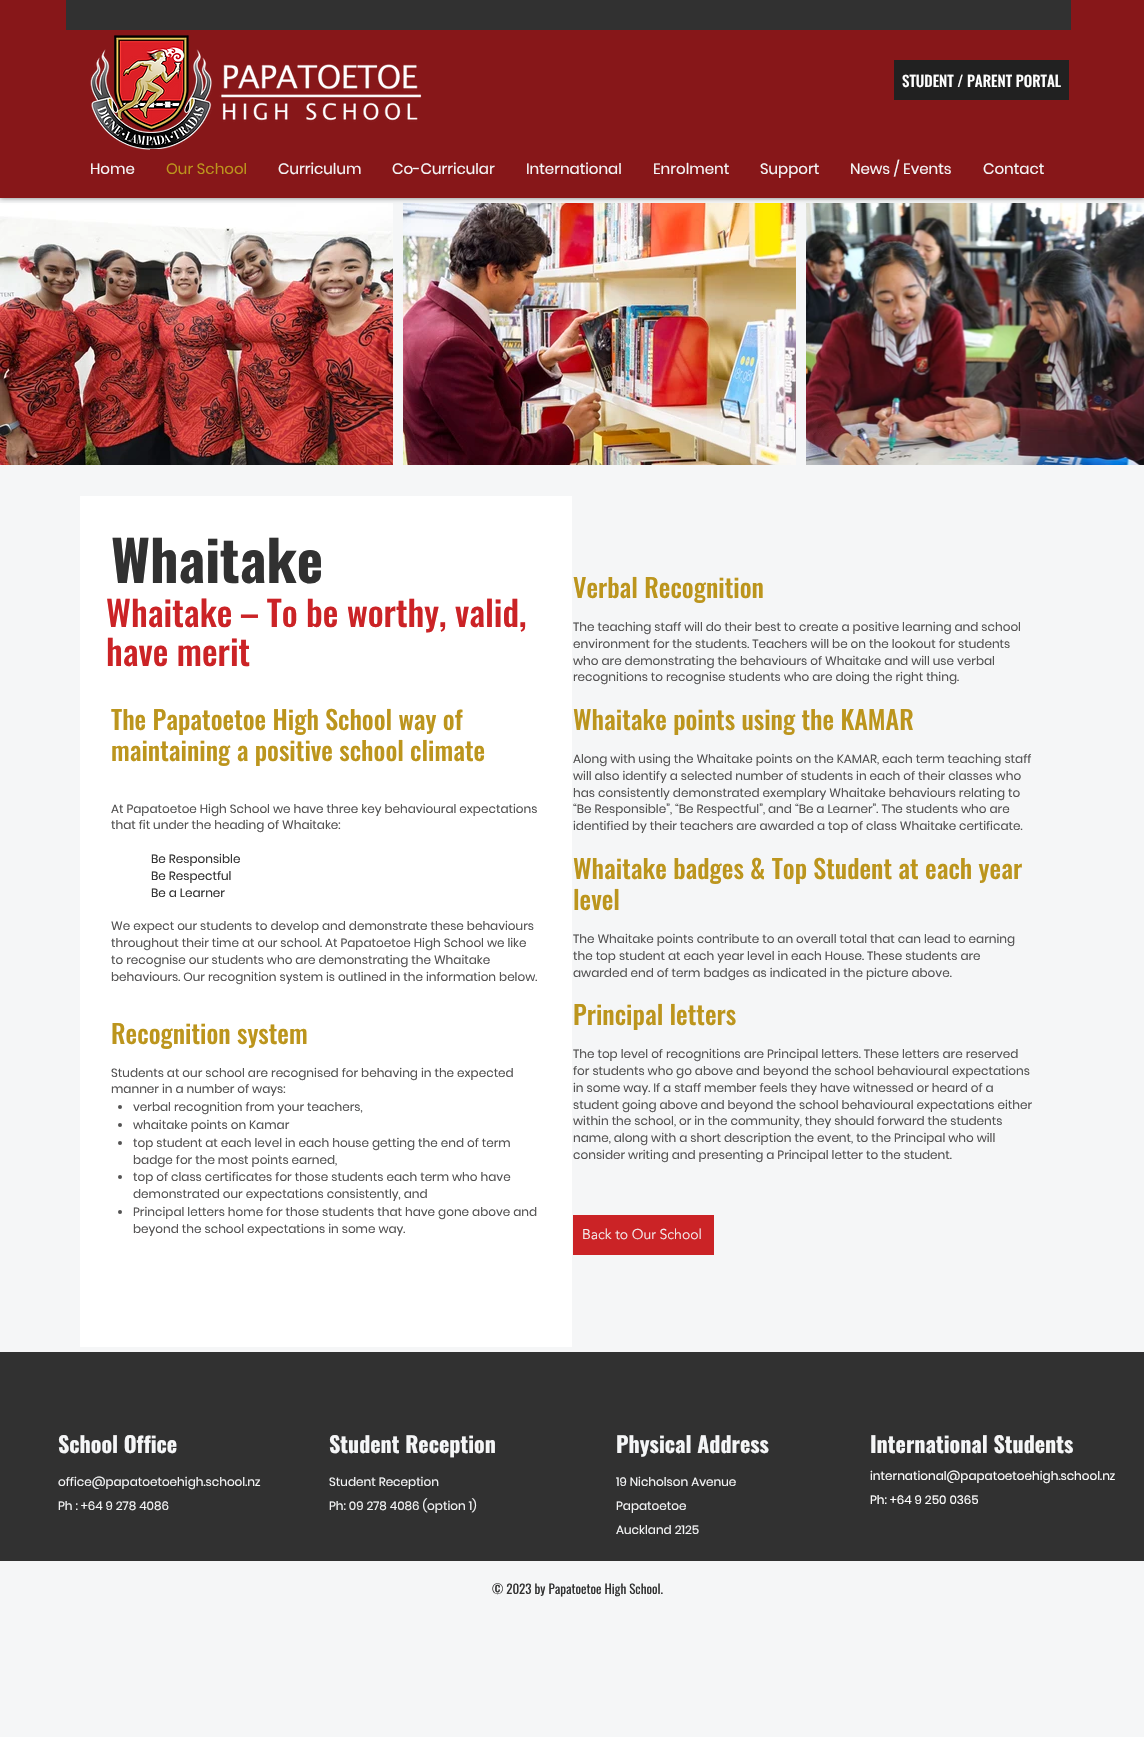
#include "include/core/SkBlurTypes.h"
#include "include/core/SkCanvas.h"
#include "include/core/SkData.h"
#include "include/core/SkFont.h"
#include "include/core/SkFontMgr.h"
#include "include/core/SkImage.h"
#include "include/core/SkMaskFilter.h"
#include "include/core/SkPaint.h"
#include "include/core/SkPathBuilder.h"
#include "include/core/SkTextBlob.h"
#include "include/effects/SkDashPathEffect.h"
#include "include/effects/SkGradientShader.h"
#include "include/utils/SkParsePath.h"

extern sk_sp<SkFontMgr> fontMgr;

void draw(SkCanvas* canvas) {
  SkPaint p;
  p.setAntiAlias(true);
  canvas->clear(SkColorSetRGB(245, 246, 247));
  canvas->drawImageRect(SkImages::DeferredFromEncodedData(SkData::MakeFromFileName("images/2.png")), SkRect::MakeLTRB(0, 203, 393, 465), SkSamplingOptions());
  canvas->drawImageRect(SkImages::DeferredFromEncodedData(SkData::MakeFromFileName("images/3.png")), SkRect::MakeLTRB(403, 203, 796, 465), SkSamplingOptions());
  canvas->drawImageRect(SkImages::DeferredFromEncodedData(SkData::MakeFromFileName("images/4.png")), SkRect::MakeLTRB(806, 203, 1144, 465), SkSamplingOptions());
  p.setColor(SkColorSetARGB(128, 0, 0, 0));
  p.setMaskFilter(SkMaskFilter::MakeBlur(kNormal_SkBlurStyle, 2.5f));
  canvas->drawRect(SkRect::MakeLTRB(0, 0, 1144, 198), p);
  p.setMaskFilter(nullptr);
  p.setColor(SkColorSetRGB(135, 23, 25));
  canvas->drawRect(SkRect::MakeLTRB(0, 0, 1144, 198), p);
  p.setColor(SkColorSetRGB(49, 49, 49));
  canvas->drawRect(SkRect::MakeLTRB(66, 0, 1071, 30), p);
  canvas->drawImageRect(SkImages::DeferredFromEncodedData(SkData::MakeFromFileName("images/1.png")), SkRect::MakeLTRB(90, 35, 422, 150), SkSamplingOptions());
  p.setColor(SkColorSetRGB(33, 33, 33));
  canvas->drawRect(SkRect::MakeLTRB(894, 60, 1069, 100), p);
  p.setColor(SkColorSetRGB(135, 23, 25));
  canvas->drawRect(SkRect::MakeLTRB(150, 149, 170, 150), p);
  p.setColor(SK_ColorWHITE);
  canvas->drawRect(SkRect::MakeLTRB(80, 496, 572, 1347), p);
  p.setColor(SkColorSetRGB(83, 82, 82));
  canvas->drawCircle(120, 1107, 2, p);
  canvas->drawCircle(120, 1125, 2, p);
  canvas->drawCircle(120, 1143, 2, p);
  canvas->drawCircle(120, 1177, 2, p);
  canvas->drawCircle(120, 1212, 2, p);
  p.setColor(SkColorSetRGB(203, 35, 38));
  canvas->drawRect(SkRect::MakeLTRB(573, 1215, 714, 1255), p);
  p.setColor(SkColorSetRGB(49, 49, 49));
  canvas->drawRect(SkRect::MakeLTRB(0, 1352, 1144, 1561), p);
  SkFont font1(fontMgr->matchFamilyStyle("Oswald", SkFontStyle(500, SkFontStyle::kNormal_Width, SkFontStyle::kUpright_Slant)), 15);
  font1.setSubpixel(true);
  p.setColor(SK_ColorWHITE);
  canvas->drawString("STUDENT / PARENT PORTAL", 902, 87, font1, p);
  SkFont font2(fontMgr->matchFamilyStyle("Poppins", SkFontStyle::Normal()), 15);
  font2.setSubpixel(true);
  p.setColor(SkColorSetRGB(245, 246, 247));
  canvas->drawString("Home", 90, 174, font2, p);
  p.setColor(SkColorSetRGB(188, 149, 29));
  canvas->drawString("Our School", 166, 174, font2, p);
  p.setColor(SkColorSetRGB(245, 246, 247));
  canvas->drawString("Curriculum", 278, 174, font2, p);
  canvas->drawString("Co-Curricular", 392, 174, font2, p);
  canvas->drawString("International", 526, 174, font2, p);
  canvas->drawString("Enrolment", 653, 174, font2, p);
  canvas->drawString("Support", 760, 174, font2, p);
  canvas->drawString("News / Events", 850, 174, font2, p);
  canvas->drawString("Contact", 983, 174, font2, p);
  SkFont font3(fontMgr->matchFamilyStyle("Oswald", SkFontStyle::Bold()), 56);
  font3.setSubpixel(true);
  p.setColor(SkColorSetRGB(49, 49, 49));
  canvas->drawString("Whaitake", 111, 583, font3, p);
  SkFont font4(fontMgr->matchFamilyStyle("Oswald", SkFontStyle(500, SkFontStyle::kNormal_Width, SkFontStyle::kUpright_Slant)), 35);
  font4.setSubpixel(true);
  p.setColor(SkColorSetRGB(203, 35, 38));
  canvas->drawString("Whaitake – To be worthy, valid,", 106, 627, font4, p);
  canvas->drawString("have merit", 106, 666, font4, p);
  SkFont font5(fontMgr->matchFamilyStyle("Oswald", SkFontStyle(500, SkFontStyle::kNormal_Width, SkFontStyle::kUpright_Slant)), 26);
  font5.setSubpixel(true);
  p.setColor(SkColorSetRGB(188, 149, 29));
  canvas->drawString("The Papatoetoe High School way of", 111, 730, font5, p);
  canvas->drawString("maintaining a positive school climate", 111, 761, font5, p);
  SkFont font6(fontMgr->matchFamilyStyle("Poppins", SkFontStyle::Normal()), 12);
  font6.setSubpixel(true);
  p.setColor(SkColorSetRGB(83, 82, 82));
  canvas->drawString("At Papatoetoe High School we have three key behavioural expectations", 111, 813, font6, p);
  canvas->drawString("that fit under the heading of Whaitake:", 111, 829, font6, p);
  p.setColor(SkColorSetRGB(49, 49, 49));
  canvas->drawString("Be Responsible", 151, 863, font6, p);
  canvas->drawString("Be Respectful", 151, 880, font6, p);
  canvas->drawString("Be a Learner", 151, 897, font6, p);
  p.setColor(SkColorSetRGB(83, 82, 82));
  canvas->drawString("We expect our students to develop and demonstrate these behaviours", 111, 930, font6, p);
  canvas->drawString("throughout their time at our school. At Papatoetoe High School we like", 111, 947, font6, p);
  canvas->drawString("to recognise our students who are demonstrating the Whaitake", 111, 964, font6, p);
  canvas->drawString("behaviours. Our recognition system is outlined in the information below.", 111, 981, font6, p);
  p.setColor(SkColorSetRGB(188, 149, 29));
  canvas->drawString("Recognition system", 111, 1044, font5, p);
  p.setColor(SkColorSetRGB(83, 82, 82));
  canvas->drawString("Students at our school are recognised for behaving in the expected", 111, 1077, font6, p);
  canvas->drawString("manner in a number of ways:", 111, 1093, font6, p);
  canvas->drawString("verbal recognition from your teachers,", 133, 1111, font6, p);
  canvas->drawString("whaitake points on Kamar", 133, 1129, font6, p);
  canvas->drawString("top student at each level in each house getting the end of term", 133, 1147, font6, p);
  canvas->drawString("badge for the most points earned,", 133, 1164, font6, p);
  canvas->drawString("top of class certificates for those students each term who have", 133, 1181, font6, p);
  canvas->drawString("demonstrated our expectations consistently, and", 133, 1198, font6, p);
  canvas->drawString("Principal letters home for those students that have gone above and", 133, 1216, font6, p);
  canvas->drawString("beyond the school expectations in some way.", 133, 1233, font6, p);
  p.setColor(SkColorSetRGB(188, 149, 29));
  canvas->drawString("Verbal Recognition", 573, 598, font5, p);
  p.setColor(SkColorSetRGB(83, 82, 82));
  canvas->drawString("The teaching staff will do their best to create a positive learning and school", 573, 631, font6, p);
  canvas->drawString("environment for the students. Teachers will be on the lookout for students", 573, 648, font6, p);
  canvas->drawString("who are demonstrating the behaviours of Whaitake and will use verbal", 573, 665, font6, p);
  canvas->drawString("recognitions to recognise students who are doing the right thing.", 573, 681, font6, p);
  p.setColor(SkColorSetRGB(188, 149, 29));
  canvas->drawString("Whaitake points using the KAMAR", 573, 730, font5, p);
  p.setColor(SkColorSetRGB(83, 82, 82));
  canvas->drawString("Along with using the Whaitake points on the KAMAR, each term teaching staff", 573, 763, font6, p);
  canvas->drawString("will also identify a selected number of students in each of their classes who", 573, 780, font6, p);
  canvas->drawString("has consistently demonstrated exemplary Whaitake behaviours relating to", 573, 797, font6, p);
  canvas->drawString("“Be Responsible”, “Be Respectful”, and “Be a Learner”. The students who are", 573, 813, font6, p);
  canvas->drawString("identified by their teachers are awarded a top of class Whaitake certificate.", 573, 830, font6, p);
  p.setColor(SkColorSetRGB(188, 149, 29));
  canvas->drawString("Whaitake badges & Top Student at each year", 573, 879, font5, p);
  canvas->drawString("level", 573, 910, font5, p);
  p.setColor(SkColorSetRGB(83, 82, 82));
  canvas->drawString("The Whaitake points contribute to an overall total that can lead to earning", 573, 943, font6, p);
  canvas->drawString("the top student at each year level in each House. These students are", 573, 960, font6, p);
  canvas->drawString("awarded end of term badges as indicated in the picture above.", 573, 977, font6, p);
  p.setColor(SkColorSetRGB(188, 149, 29));
  canvas->drawString("Principal letters", 573, 1025, font5, p);
  p.setColor(SkColorSetRGB(83, 82, 82));
  canvas->drawString("The top level of recognitions are Principal letters. These letters are reserved", 573, 1058, font6, p);
  canvas->drawString("for students who go above and beyond the school behavioural expectations", 573, 1075, font6, p);
  canvas->drawString("in some way. If a staff member feels they have witnessed or heard of a", 573, 1092, font6, p);
  canvas->drawString("student going above and beyond the school behavioural expectations either", 573, 1109, font6, p);
  canvas->drawString("within the school, or in the community, they should forward the students", 573, 1125, font6, p);
  canvas->drawString("name, along with a short description the event, to the Principal who will", 573, 1142, font6, p);
  canvas->drawString("consider writing and presenting a Principal letter to the student.", 573, 1159, font6, p);
  SkFont font7(fontMgr->matchFamilyStyle("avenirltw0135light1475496", SkFontStyle(300, SkFontStyle::kNormal_Width, SkFontStyle::kUpright_Slant)), 14);
  font7.setSubpixel(true);
  p.setColor(SkColorSetRGB(245, 246, 247));
  canvas->drawString("Back to Our School", 582, 1239, font7, p);
  SkFont font8(fontMgr->matchFamilyStyle("Oswald", SkFontStyle::Bold()), 22);
  font8.setSubpixel(true);
  canvas->drawString("School Office", 58, 1453, font8, p);
  canvas->drawString("office@papatoetoehigh.school.nz", 58, 1486, font6, p);
  canvas->drawString("Ph : +64 9 278 4086", 58, 1510, font6, p);
  canvas->drawString("Student Reception", 329, 1453, font8, p);
  canvas->drawString("Student Reception", 329, 1486, font6, p);
  canvas->drawString("Ph: 09 278 4086 (option 1)", 329, 1510, font6, p);
  canvas->drawString("Physical Address", 616, 1453, font8, p);
  canvas->drawString("19 Nicholson Avenue", 616, 1486, font6, p);
  canvas->drawString("Papatoetoe", 616, 1510, font6, p);
  canvas->drawString("Auckland 2125", 616, 1534, font6, p);
  canvas->drawString("International Students", 870, 1453, font8, p);
  p.setColor(SK_ColorWHITE);
  canvas->drawString("international@papatoetoehigh.school.nz", 870, 1480, font6, p);
  canvas->drawString("Ph: +64 9 250 0365", 870, 1504, font6, p);
  SkFont font9(fontMgr->matchFamilyStyle("Oswald", SkFontStyle::Normal()), 13);
  font9.setSubpixel(true);
  p.setColor(SkColorSetRGB(49, 49, 49));
  canvas->drawString("© 2023 by Papatoetoe High School.", 492, 1594, font9, p);
}
